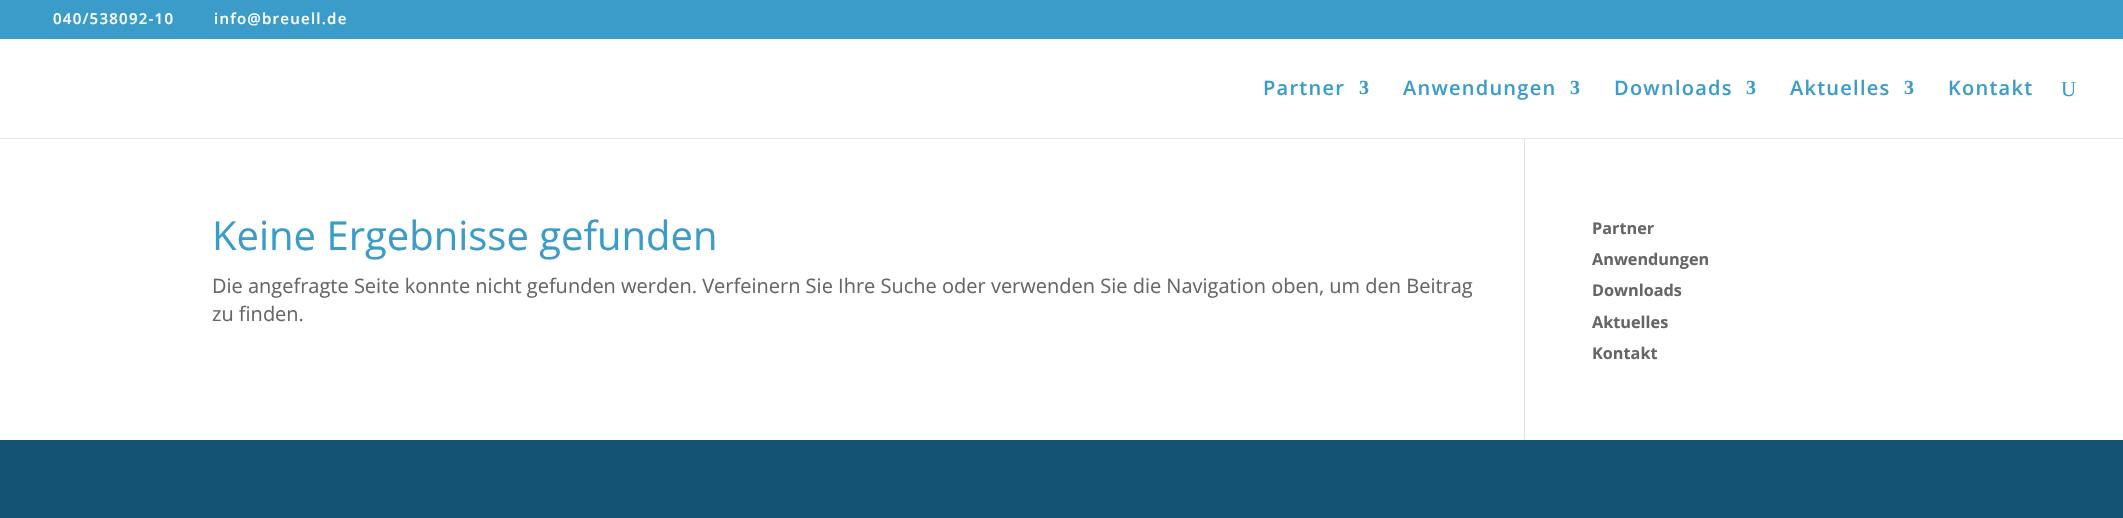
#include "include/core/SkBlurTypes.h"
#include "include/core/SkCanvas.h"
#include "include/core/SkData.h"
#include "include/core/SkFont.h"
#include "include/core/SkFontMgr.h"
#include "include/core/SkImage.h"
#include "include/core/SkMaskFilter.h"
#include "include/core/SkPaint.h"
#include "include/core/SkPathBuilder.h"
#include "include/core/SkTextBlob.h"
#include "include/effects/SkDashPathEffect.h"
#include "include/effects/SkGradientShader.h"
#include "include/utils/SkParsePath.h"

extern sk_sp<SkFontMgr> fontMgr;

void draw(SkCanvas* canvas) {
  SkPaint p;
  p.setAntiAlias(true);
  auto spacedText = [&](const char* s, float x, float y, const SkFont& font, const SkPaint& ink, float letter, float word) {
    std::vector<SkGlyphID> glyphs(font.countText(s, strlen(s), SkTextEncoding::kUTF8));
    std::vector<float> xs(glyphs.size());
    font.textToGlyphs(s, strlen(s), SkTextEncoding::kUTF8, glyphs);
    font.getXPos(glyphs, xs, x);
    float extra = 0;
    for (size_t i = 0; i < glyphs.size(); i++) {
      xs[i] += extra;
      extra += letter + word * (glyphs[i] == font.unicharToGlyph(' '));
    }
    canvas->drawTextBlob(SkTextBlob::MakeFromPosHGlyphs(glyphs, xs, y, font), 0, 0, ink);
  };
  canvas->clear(SK_ColorWHITE);
  p.setColor(SkColorSetRGB(59, 156, 202));
  canvas->drawRect(SkRect::MakeLTRB(0, 0, 2123, 39), p);
  p.setColor(SkColorSetRGB(230, 230, 230));
  canvas->drawPath(SkPathBuilder().moveTo(0, 138).lineTo(0, 139).lineTo(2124, 139).lineTo(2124, 39).lineTo(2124, 138).close().detach(), p);
  p.setColor(SkColorSetRGB(226, 226, 226));
  canvas->drawRect(SkRect::MakeLTRB(1524, 139, 1525, 440), p);
  p.setColor(SkColorSetRGB(20, 83, 116));
  canvas->drawRect(SkRect::MakeLTRB(0, 440, 2123, 518), p);
  SkFont font1(fontMgr->matchFamilyStyle("Open Sans", SkFontStyle(600, SkFontStyle::kNormal_Width, SkFontStyle::kUpright_Slant)), 15);
  font1.setSubpixel(true);
  p.setColor(SK_ColorWHITE);
  spacedText("040/538092-10", 53, 24, font1, p, 1.25f, 0);
  spacedText("info@breuell.de", 214, 24, font1, p, 1.25f, 0);
  SkFont font2(fontMgr->matchFamilyStyle("Open Sans", SkFontStyle(600, SkFontStyle::kNormal_Width, SkFontStyle::kUpright_Slant)), 20);
  font2.setSubpixel(true);
  p.setColor(SkColorSetRGB(59, 156, 202));
  spacedText("Partner", 1263, 95, font2, p, 1.25f, 0);
  SkFont font3(fontMgr->matchFamilyStyle("Liberation Serif", SkFontStyle::Bold()), 20);
  font3.setSubpixel(true);
  spacedText("3", 1359, 94, font3, p, 1.25f, 0);
  spacedText("Anwendungen", 1403, 95, font2, p, 1.25f, 0);
  spacedText("3", 1570, 94, font3, p, 1.25f, 0);
  spacedText("Downloads", 1614, 95, font2, p, 1.25f, 0);
  spacedText("3", 1746, 94, font3, p, 1.25f, 0);
  spacedText("Aktuelles", 1790, 95, font2, p, 1.25f, 0);
  spacedText("3", 1904, 94, font3, p, 1.25f, 0);
  spacedText("Kontakt", 1948, 95, font2, p, 1.25f, 0);
  SkFont font4(fontMgr->matchFamilyStyle("Liberation Serif", SkFontStyle::Normal()), 21);
  font4.setSubpixel(true);
  canvas->drawString("U", 2061, 96, font4, p);
  SkFont font5(fontMgr->matchFamilyStyle("Open Sans", SkFontStyle::Normal()), 40);
  font5.setSubpixel(true);
  canvas->drawString("Keine Ergebnisse gefunden", 212, 250, font5, p);
  SkFont font6(fontMgr->matchFamilyStyle("Open Sans", SkFontStyle::Normal()), 20);
  font6.setSubpixel(true);
  p.setColor(SkColorSetRGB(102, 102, 102));
  canvas->drawString("Die angefragte Seite konnte nicht gefunden werden. Verfeinern Sie Ihre Suche oder verwenden Sie die Navigation oben, um den Beitrag", 212, 293, font6, p);
  canvas->drawString("zu finden.", 212, 321, font6, p);
  SkFont font7(fontMgr->matchFamilyStyle("Open Sans", SkFontStyle::Bold()), 16.25f);
  font7.setSubpixel(true);
  canvas->drawString("Partner", 1592, 234, font7, p);
  canvas->drawString("Anwendungen", 1592, 265, font7, p);
  canvas->drawString("Downloads", 1592, 296, font7, p);
  canvas->drawString("Aktuelles", 1592, 328, font7, p);
  canvas->drawString("Kontakt", 1592, 359, font7, p);
}
